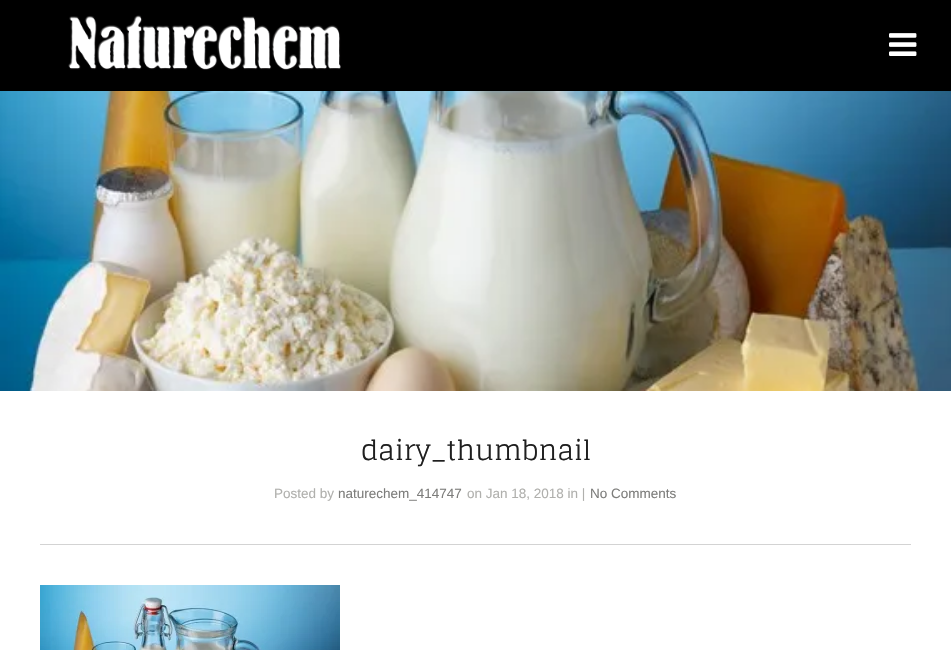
#include "include/core/SkBlurTypes.h"
#include "include/core/SkCanvas.h"
#include "include/core/SkData.h"
#include "include/core/SkFont.h"
#include "include/core/SkFontMgr.h"
#include "include/core/SkImage.h"
#include "include/core/SkMaskFilter.h"
#include "include/core/SkPaint.h"
#include "include/core/SkPathBuilder.h"
#include "include/core/SkTextBlob.h"
#include "include/effects/SkDashPathEffect.h"
#include "include/effects/SkGradientShader.h"
#include "include/utils/SkParsePath.h"

extern sk_sp<SkFontMgr> fontMgr;

void draw(SkCanvas* canvas) {
  SkPaint p;
  p.setAntiAlias(true);
  canvas->clear(SK_ColorWHITE);
  p.setColor(SK_ColorBLACK);
  canvas->drawRect(SkRect::MakeLTRB(0, 0, 951, 91), p);
  canvas->drawImageRect(SkImages::DeferredFromEncodedData(SkData::MakeFromFileName("images/1.png")), SkRect::MakeLTRB(68, 15, 341, 70), SkSamplingOptions());
  canvas->drawImageRect(SkImages::DeferredFromEncodedData(SkData::MakeFromFileName("images/2.png")), SkRect::MakeLTRB(889, 33, 917, 56), SkSamplingOptions());
  canvas->drawImageRect(SkImages::DeferredFromEncodedData(SkData::MakeFromFileName("images/3.png")), SkRect::MakeLTRB(0, 91, 951, 391), SkSamplingOptions());
  p.setColor(SkColorSetRGB(211, 211, 211));
  canvas->drawRect(SkRect::MakeLTRB(40, 544, 911, 545), p);
  canvas->drawImageRect(SkImages::DeferredFromEncodedData(SkData::MakeFromFileName("images/4.png")), SkRect::MakeLTRB(40, 585, 340, 650), SkSamplingOptions());
  SkFont font1(fontMgr->matchFamilyStyle("Glegoo", SkFontStyle::Normal()), 27.25f);
  font1.setSubpixel(true);
  p.setColor(SkColorSetRGB(31, 31, 31));
  canvas->drawString("dairy_thumbnail", 361, 460, font1, p);
  SkFont font2(fontMgr->matchFamilyStyle("Liberation Sans", SkFontStyle::Normal()), 13.5f);
  font2.setSubpixel(true);
  p.setColor(SkColorSetRGB(176, 176, 173));
  canvas->drawString("Posted by", 274, 498, font2, p);
  p.setColor(SkColorSetRGB(125, 125, 123));
  canvas->drawString("naturechem_414747", 338, 498, font2, p);
  p.setColor(SkColorSetRGB(176, 176, 173));
  canvas->drawString("on Jan 18, 2018 in |", 467, 498, font2, p);
  p.setColor(SkColorSetRGB(125, 125, 123));
  canvas->drawString("No Comments", 590, 498, font2, p);
}
